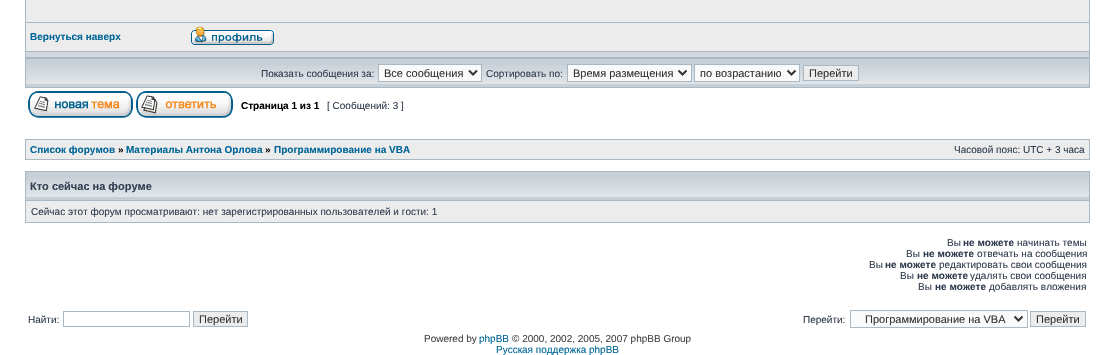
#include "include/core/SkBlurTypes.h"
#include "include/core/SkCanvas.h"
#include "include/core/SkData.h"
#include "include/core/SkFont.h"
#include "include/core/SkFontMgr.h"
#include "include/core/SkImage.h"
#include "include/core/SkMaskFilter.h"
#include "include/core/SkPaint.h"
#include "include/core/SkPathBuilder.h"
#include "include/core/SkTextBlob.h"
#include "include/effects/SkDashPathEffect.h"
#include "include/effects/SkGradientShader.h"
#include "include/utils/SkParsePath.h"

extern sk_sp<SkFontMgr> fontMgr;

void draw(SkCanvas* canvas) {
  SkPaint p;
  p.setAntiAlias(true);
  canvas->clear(SK_ColorWHITE);
  p.setColor(SkColorSetRGB(169, 184, 194));
  canvas->drawRect(SkRect::MakeLTRB(25, 0, 1090, 88), p);
  p.setColor(SkColorSetRGB(236, 236, 236));
  canvas->drawRect(SkRect::MakeLTRB(26, 0, 1089, 22), p);
  canvas->drawRect(SkRect::MakeLTRB(26, 23, 1089, 51), p);
  canvas->drawImageRect(SkImages::DeferredFromEncodedData(SkData::MakeFromFileName("images/1.png")), SkRect::MakeLTRB(191, 26, 274, 45), SkSamplingOptions());
  p.setColor(SkColorSetRGB(209, 215, 220));
  canvas->drawRect(SkRect::MakeLTRB(26, 52, 1089, 57), p);
  p.setColor(SkColorSetRGB(199, 208, 215));
  canvas->drawRect(SkRect::MakeLTRB(26, 59, 1089, 87), p);
  canvas->drawImageRect(SkImages::DeferredFromEncodedData(SkData::MakeFromFileName("images/2.png")), SkRect::MakeLTRB(26, 65, 1089, 84), SkSamplingOptions());
  p.setColor(SkColorSetRGB(250, 250, 250));
  canvas->drawRect(SkRect::MakeLTRB(378.5f, 64.5f, 481.5f, 81.5f), p);
  p.setStyle(SkPaint::kStroke_Style);
  p.setStrokeWidth(1);
  p.setColor(SkColorSetRGB(169, 184, 194));
  canvas->drawRect(SkRect::MakeLTRB(378.5f, 64.5f, 481.5f, 81.5f), p);
  p.setStrokeWidth(2);
  p.setColor(SkColorSetRGB(51, 51, 51));
  canvas->drawPath(SkPathBuilder().moveTo(469, 70.5f).lineTo(473, 74.5f).lineTo(477, 70.5f).detach(), p);
  p.setStyle(SkPaint::kFill_Style);
  p.setColor(SkColorSetRGB(250, 250, 250));
  canvas->drawRect(SkRect::MakeLTRB(567.5f, 64.5f, 691.5f, 81.5f), p);
  p.setStyle(SkPaint::kStroke_Style);
  p.setStrokeWidth(1);
  p.setColor(SkColorSetRGB(169, 184, 194));
  canvas->drawRect(SkRect::MakeLTRB(567.5f, 64.5f, 691.5f, 81.5f), p);
  p.setStrokeWidth(2);
  p.setColor(SkColorSetRGB(51, 51, 51));
  canvas->drawPath(SkPathBuilder().moveTo(678.5f, 70.5f).lineTo(682.5f, 74.5f).lineTo(686.5f, 70.5f).detach(), p);
  p.setStyle(SkPaint::kFill_Style);
  p.setColor(SkColorSetRGB(250, 250, 250));
  canvas->drawRect(SkRect::MakeLTRB(694.5f, 64.5f, 799.5f, 81.5f), p);
  p.setStyle(SkPaint::kStroke_Style);
  p.setStrokeWidth(1);
  p.setColor(SkColorSetRGB(169, 184, 194));
  canvas->drawRect(SkRect::MakeLTRB(694.5f, 64.5f, 799.5f, 81.5f), p);
  p.setStrokeWidth(2);
  p.setColor(SkColorSetRGB(51, 51, 51));
  canvas->drawPath(SkPathBuilder().moveTo(787.5f, 70.5f).lineTo(791.5f, 74.5f).lineTo(795.5f, 70.5f).detach(), p);
  p.setStyle(SkPaint::kFill_Style);
  p.setColor(SkColorSetRGB(236, 236, 236));
  canvas->drawRect(SkRect::MakeLTRB(803.5f, 65.5f, 858.5f, 80.5f), p);
  p.setStyle(SkPaint::kStroke_Style);
  p.setStrokeWidth(1);
  p.setColor(SkColorSetRGB(169, 184, 194));
  canvas->drawRect(SkRect::MakeLTRB(803.5f, 65.5f, 858.5f, 80.5f), p);
  canvas->drawImageRect(SkImages::DeferredFromEncodedData(SkData::MakeFromFileName("images/3.png")), SkRect::MakeLTRB(28, 91, 133, 118), SkSamplingOptions());
  canvas->drawImageRect(SkImages::DeferredFromEncodedData(SkData::MakeFromFileName("images/4.png")), SkRect::MakeLTRB(136, 91, 233, 118), SkSamplingOptions());
  p.setStyle(SkPaint::kFill_Style);
  canvas->drawRect(SkRect::MakeLTRB(25, 139, 1090, 160), p);
  p.setColor(SkColorSetRGB(236, 236, 236));
  canvas->drawRect(SkRect::MakeLTRB(26, 140, 1089, 159), p);
  p.setColor(SkColorSetRGB(169, 184, 194));
  canvas->drawRect(SkRect::MakeLTRB(25, 171, 1090, 223), p);
  p.setColor(SkColorSetRGB(199, 208, 215));
  canvas->drawRect(SkRect::MakeLTRB(26, 172, 1089, 200), p);
  canvas->drawImageRect(SkImages::DeferredFromEncodedData(SkData::MakeFromFileName("images/2.png")), SkRect::MakeLTRB(26, 178, 1089, 197), SkSamplingOptions());
  p.setColor(SkColorSetRGB(236, 236, 236));
  canvas->drawRect(SkRect::MakeLTRB(26, 201, 1089, 222), p);
  p.setStyle(SkPaint::kStroke_Style);
  p.setColor(SkColorSetRGB(169, 184, 194));
  canvas->drawRect(SkRect::MakeLTRB(63.5f, 311.5f, 189.5f, 326.5f), p);
  p.setStyle(SkPaint::kFill_Style);
  p.setColor(SkColorSetRGB(236, 236, 236));
  canvas->drawRect(SkRect::MakeLTRB(193.5f, 311.5f, 247.5f, 326.5f), p);
  p.setStyle(SkPaint::kStroke_Style);
  p.setColor(SkColorSetRGB(169, 184, 194));
  canvas->drawRect(SkRect::MakeLTRB(193.5f, 311.5f, 247.5f, 326.5f), p);
  p.setStyle(SkPaint::kFill_Style);
  p.setColor(SkColorSetRGB(250, 250, 250));
  canvas->drawRect(SkRect::MakeLTRB(850.5f, 310.5f, 1027.5f, 327.5f), p);
  p.setStyle(SkPaint::kStroke_Style);
  p.setColor(SkColorSetRGB(169, 184, 194));
  canvas->drawRect(SkRect::MakeLTRB(850.5f, 310.5f, 1027.5f, 327.5f), p);
  p.setStrokeWidth(2);
  p.setColor(SkColorSetRGB(51, 51, 51));
  canvas->drawPath(SkPathBuilder().moveTo(1014.5f, 316.5f).lineTo(1018.5f, 320.5f).lineTo(1022.5f, 316.5f).detach(), p);
  p.setStyle(SkPaint::kFill_Style);
  p.setColor(SkColorSetRGB(236, 236, 236));
  canvas->drawRect(SkRect::MakeLTRB(1030.5f, 311.5f, 1085.5f, 326.5f), p);
  p.setStyle(SkPaint::kStroke_Style);
  p.setStrokeWidth(1);
  p.setColor(SkColorSetRGB(169, 184, 194));
  canvas->drawRect(SkRect::MakeLTRB(1030.5f, 311.5f, 1085.5f, 326.5f), p);
  SkFont font1(fontMgr->matchFamilyStyle("Liberation Sans", SkFontStyle::Bold()), 10);
  font1.setSubpixel(true);
  p.setStyle(SkPaint::kFill_Style);
  p.setColor(SkColorSetRGB(0, 101, 151));
  canvas->drawString("Вернуться наверх", 30, 40, font1, p);
  SkFont font2(fontMgr->matchFamilyStyle("Liberation Sans", SkFontStyle::Normal()), 10);
  font2.setSubpixel(true);
  p.setColor(SkColorSetRGB(50, 61, 79));
  canvas->drawString("Показать сообщения за:", 261, 77, font2, p);
  SkFont font3(fontMgr->matchFamilyStyle("Liberation Sans", SkFontStyle::Normal()), 11);
  font3.setSubpixel(true);
  p.setColor(SkColorSetRGB(51, 51, 51));
  canvas->drawString("Все сообщения", 384, 77, font3, p);
  p.setColor(SkColorSetRGB(50, 61, 79));
  canvas->drawString("Сортировать по:", 486, 77, font2, p);
  p.setColor(SkColorSetRGB(51, 51, 51));
  canvas->drawString("Время размещения", 573, 77, font3, p);
  canvas->drawString("по возрастанию", 700, 77, font3, p);
  canvas->drawString("Перейти", 809, 77, font3, p);
  p.setColor(SK_ColorBLACK);
  canvas->drawString("Страница 1 из 1", 241, 109, font1, p);
  p.setColor(SkColorSetRGB(50, 61, 79));
  canvas->drawString("[ Сообщений: 3 ]", 327, 109, font2, p);
  p.setColor(SkColorSetRGB(0, 101, 151));
  canvas->drawString("Список форумов", 30, 153, font1, p);
  p.setColor(SK_ColorBLACK);
  canvas->drawString("»", 118, 153, font1, p);
  p.setColor(SkColorSetRGB(0, 101, 151));
  canvas->drawString("Материалы Антона Орлова", 126, 153, font1, p);
  p.setColor(SK_ColorBLACK);
  canvas->drawString("»", 265, 153, font1, p);
  p.setColor(SkColorSetRGB(0, 101, 151));
  canvas->drawString("Программирование на VBA", 274, 153, font1, p);
  p.setColor(SkColorSetRGB(50, 61, 79));
  canvas->drawString("Часовой пояс: UTC + 3 часа", 954, 153, font2, p);
  SkFont font4(fontMgr->matchFamilyStyle("Liberation Sans", SkFontStyle::Bold()), 11);
  font4.setSubpixel(true);
  canvas->drawString("Кто сейчас на форуме", 30, 190, font4, p);
  canvas->drawString("Сейчас этот форум просматривают: нет зарегистрированных пользователей и гости: 1", 31, 215, font2, p);
  canvas->drawString("Вы", 947, 246, font2, p);
  canvas->drawString("не можете", 963, 246, font1, p);
  canvas->drawString("начинать темы", 1017, 246, font2, p);
  canvas->drawString("Вы", 906, 257, font2, p);
  canvas->drawString("не можете", 923, 257, font1, p);
  canvas->drawString("отвечать на сообщения", 977, 257, font2, p);
  canvas->drawString("Вы", 869, 268, font2, p);
  canvas->drawString("не можете", 885, 268, font1, p);
  canvas->drawString("редактировать свои сообщения", 939, 268, font2, p);
  canvas->drawString("Вы", 900, 279, font2, p);
  canvas->drawString("не можете", 917, 279, font1, p);
  canvas->drawString("удалять свои сообщения", 970, 279, font2, p);
  canvas->drawString("Вы", 918, 290, font2, p);
  canvas->drawString("не можете", 935, 290, font1, p);
  canvas->drawString("добавлять вложения", 989, 290, font2, p);
  canvas->drawString("Найти:", 28, 323, font2, p);
  p.setColor(SkColorSetRGB(51, 51, 51));
  canvas->drawString("Перейти", 199, 323, font3, p);
  p.setColor(SkColorSetRGB(50, 61, 79));
  canvas->drawString("Перейти:", 803, 323, font2, p);
  p.setColor(SkColorSetRGB(51, 51, 51));
  canvas->drawString("Программирование на VBA", 865, 323, font3, p);
  canvas->drawString("Перейти", 1036, 323, font3, p);
  p.setColor(SkColorSetRGB(68, 68, 68));
  canvas->drawString("Powered by", 424, 342, font2, p);
  p.setColor(SkColorSetRGB(0, 101, 151));
  canvas->drawString("phpBB", 479, 342, font2, p);
  p.setColor(SkColorSetRGB(68, 68, 68));
  canvas->drawString("© 2000, 2002, 2005, 2007 phpBB Group", 512, 342, font2, p);
  p.setColor(SkColorSetRGB(0, 101, 151));
  canvas->drawString("Русская поддержка phpBB", 496, 353, font2, p);
}
